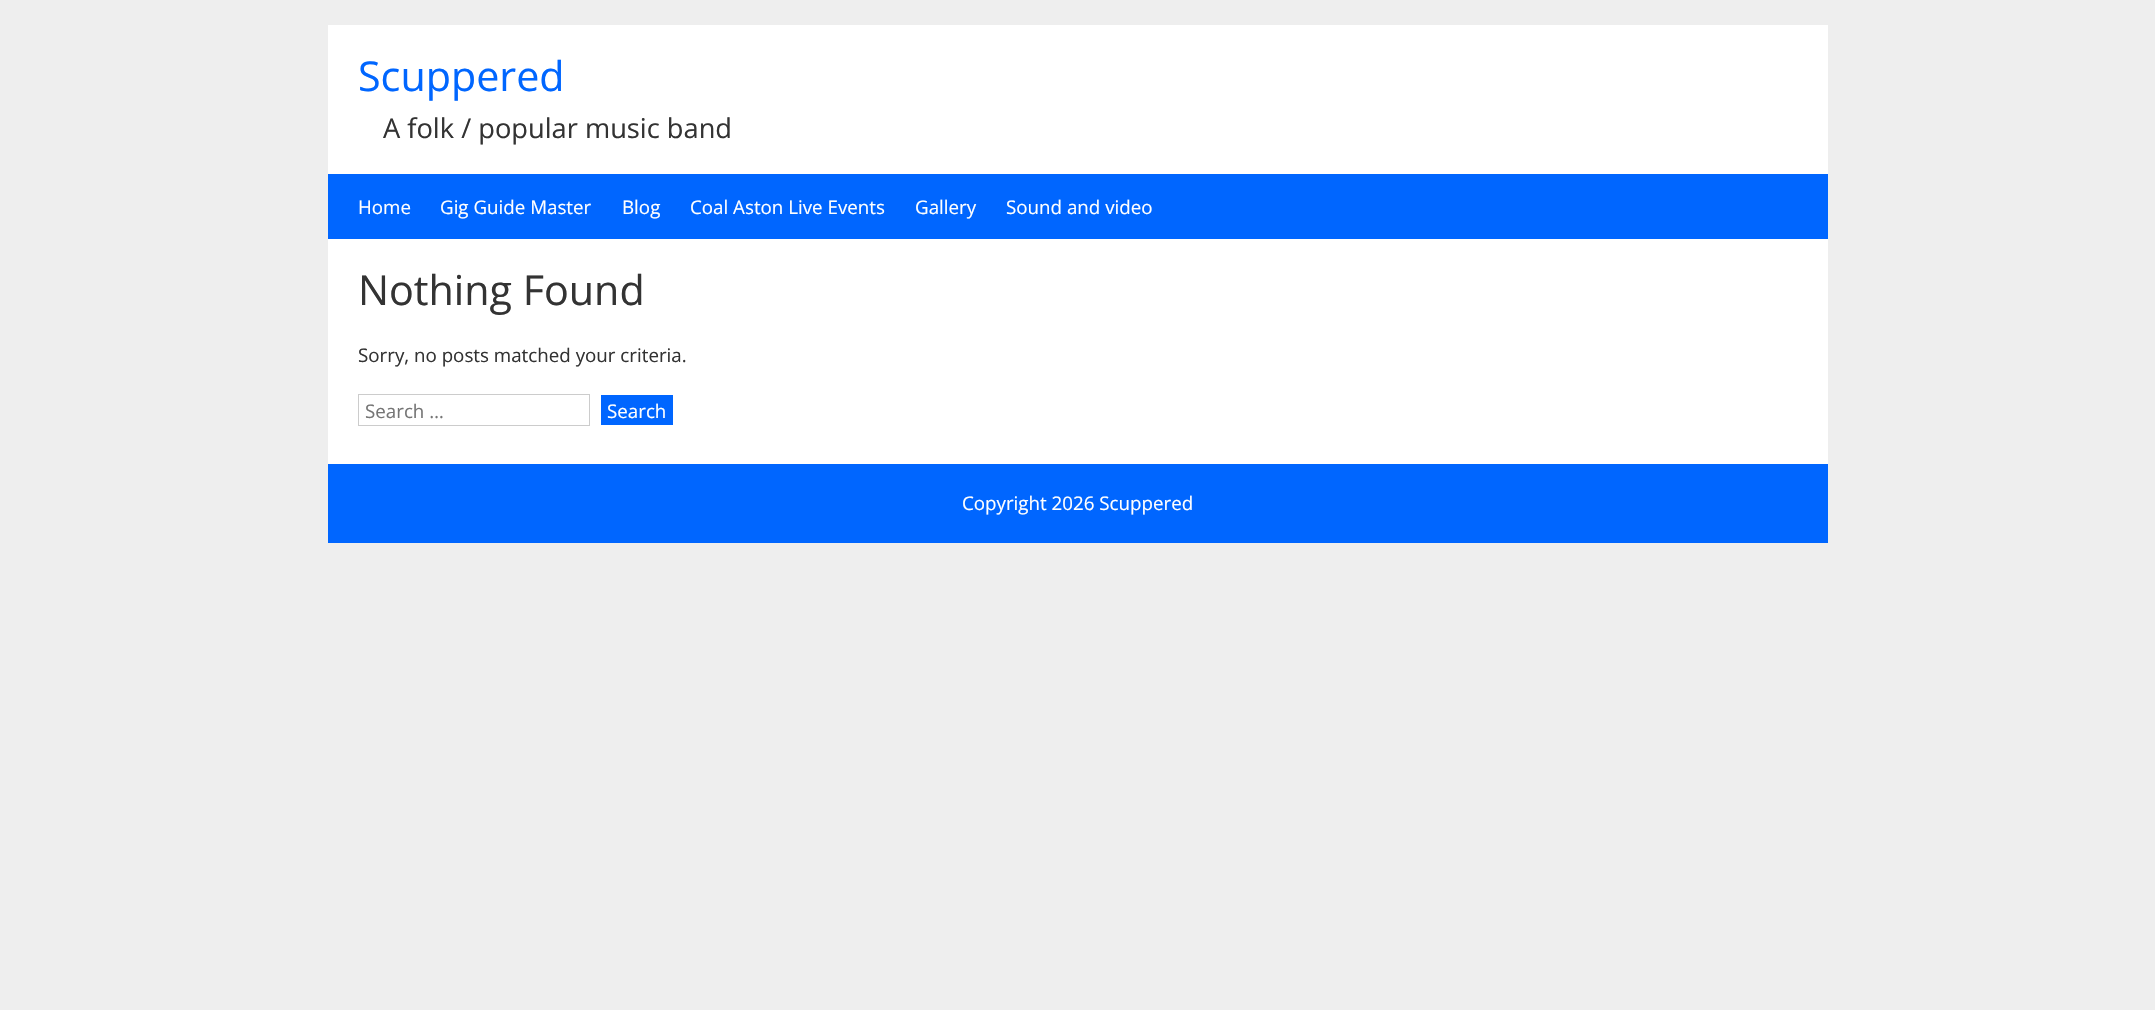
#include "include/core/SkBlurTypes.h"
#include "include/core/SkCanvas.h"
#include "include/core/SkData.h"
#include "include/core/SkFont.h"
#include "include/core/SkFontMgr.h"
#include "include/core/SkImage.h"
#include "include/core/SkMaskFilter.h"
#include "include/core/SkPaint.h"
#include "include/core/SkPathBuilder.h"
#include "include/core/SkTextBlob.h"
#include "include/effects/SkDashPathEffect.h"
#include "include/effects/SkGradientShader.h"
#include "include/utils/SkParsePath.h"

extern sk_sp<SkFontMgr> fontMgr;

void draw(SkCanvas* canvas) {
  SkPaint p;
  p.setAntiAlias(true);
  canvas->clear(SkColorSetRGB(238, 238, 238));
  p.setColor(SK_ColorWHITE);
  canvas->drawRect(SkRect::MakeLTRB(328, 25, 1828, 464), p);
  p.setColor(SkColorSetRGB(0, 102, 255));
  canvas->drawRect(SkRect::MakeLTRB(328, 174, 1828, 239), p);
  p.setStyle(SkPaint::kStroke_Style);
  p.setStrokeWidth(1);
  p.setColor(SkColorSetRGB(204, 204, 204));
  canvas->drawRect(SkRect::MakeLTRB(358.5f, 394.5f, 589.5f, 425.5f), p);
  p.setStyle(SkPaint::kFill_Style);
  p.setColor(SkColorSetRGB(0, 102, 255));
  canvas->drawRect(SkRect::MakeLTRB(601, 395, 673, 425), p);
  canvas->drawRect(SkRect::MakeLTRB(328, 464, 1828, 543), p);
  SkFont font1(fontMgr->matchFamilyStyle("Open Sans", SkFontStyle::Normal()), 41.25f);
  font1.setSubpixel(true);
  canvas->drawString("Scuppered", 358, 91, font1, p);
  SkFont font2(fontMgr->matchFamilyStyle("Open Sans", SkFontStyle::Normal()), 27.25f);
  font2.setSubpixel(true);
  p.setColor(SkColorSetRGB(51, 51, 51));
  canvas->drawString("A folk / popular music band", 383, 138, font2, p);
  SkFont font3(fontMgr->matchFamilyStyle("Open Sans", SkFontStyle::Normal()), 18.75f);
  font3.setSubpixel(true);
  p.setColor(SK_ColorWHITE);
  canvas->drawString("Home", 358, 214, font3, p);
  canvas->drawString("Gig Guide Master", 440, 214, font3, p);
  canvas->drawString("Blog", 622, 214, font3, p);
  canvas->drawString("Coal Aston Live Events", 690, 214, font3, p);
  canvas->drawString("Gallery", 915, 214, font3, p);
  canvas->drawString("Sound and video", 1006, 214, font3, p);
  p.setColor(SkColorSetRGB(51, 51, 51));
  canvas->drawString("Nothing Found", 358, 305, font1, p);
  canvas->drawString("Sorry, no posts matched your criteria.", 358, 362, font3, p);
  p.setColor(SkColorSetRGB(117, 117, 117));
  canvas->drawString("Search …", 365, 418, font3, p);
  p.setColor(SK_ColorWHITE);
  canvas->drawString("Search", 607, 418, font3, p);
  canvas->drawString("Copyright 2026 Scuppered", 962, 510, font3, p);
}
